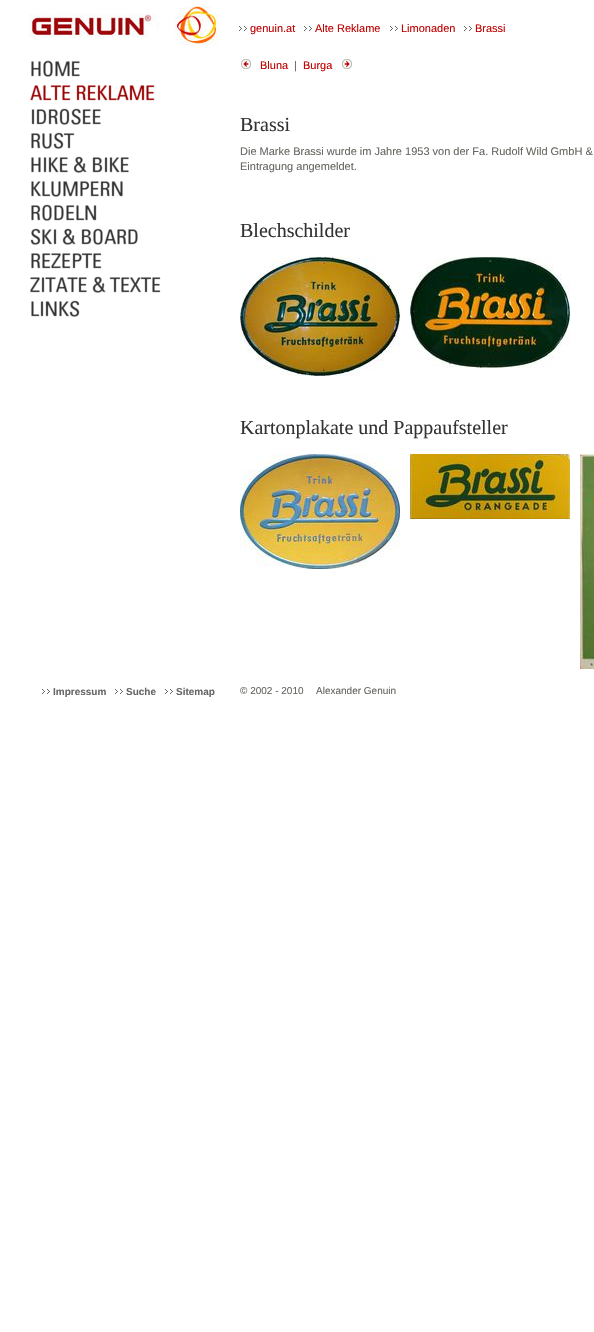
#include "include/core/SkBlurTypes.h"
#include "include/core/SkCanvas.h"
#include "include/core/SkData.h"
#include "include/core/SkFont.h"
#include "include/core/SkFontMgr.h"
#include "include/core/SkImage.h"
#include "include/core/SkMaskFilter.h"
#include "include/core/SkPaint.h"
#include "include/core/SkPathBuilder.h"
#include "include/core/SkTextBlob.h"
#include "include/effects/SkDashPathEffect.h"
#include "include/effects/SkGradientShader.h"
#include "include/utils/SkParsePath.h"

extern sk_sp<SkFontMgr> fontMgr;

void draw(SkCanvas* canvas) {
  SkPaint p;
  p.setAntiAlias(true);
  canvas->clear(SK_ColorWHITE);
  canvas->drawImageRect(SkImages::DeferredFromEncodedData(SkData::MakeFromFileName("images/1.png")), SkRect::MakeLTRB(29, 6, 220, 45), SkSamplingOptions());
  canvas->drawImageRect(SkImages::DeferredFromEncodedData(SkData::MakeFromFileName("images/2.png")), SkRect::MakeLTRB(239, 26, 247, 31), SkSamplingOptions());
  canvas->drawImageRect(SkImages::DeferredFromEncodedData(SkData::MakeFromFileName("images/2.png")), SkRect::MakeLTRB(304, 26, 312, 31), SkSamplingOptions());
  canvas->drawImageRect(SkImages::DeferredFromEncodedData(SkData::MakeFromFileName("images/2.png")), SkRect::MakeLTRB(390, 26, 398, 31), SkSamplingOptions());
  canvas->drawImageRect(SkImages::DeferredFromEncodedData(SkData::MakeFromFileName("images/2.png")), SkRect::MakeLTRB(464, 26, 472, 31), SkSamplingOptions());
  canvas->drawImageRect(SkImages::DeferredFromEncodedData(SkData::MakeFromFileName("images/3.png")), SkRect::MakeLTRB(31, 60, 80, 77), SkSamplingOptions());
  canvas->drawImageRect(SkImages::DeferredFromEncodedData(SkData::MakeFromFileName("images/4.png")), SkRect::MakeLTRB(30, 85, 155, 101), SkSamplingOptions());
  canvas->drawImageRect(SkImages::DeferredFromEncodedData(SkData::MakeFromFileName("images/5.png")), SkRect::MakeLTRB(31, 108, 101, 125), SkSamplingOptions());
  canvas->drawImageRect(SkImages::DeferredFromEncodedData(SkData::MakeFromFileName("images/6.png")), SkRect::MakeLTRB(31, 132, 75, 149), SkSamplingOptions());
  canvas->drawImageRect(SkImages::DeferredFromEncodedData(SkData::MakeFromFileName("images/7.png")), SkRect::MakeLTRB(31, 156, 129, 173), SkSamplingOptions());
  canvas->drawImageRect(SkImages::DeferredFromEncodedData(SkData::MakeFromFileName("images/8.png")), SkRect::MakeLTRB(31, 181, 123, 197), SkSamplingOptions());
  canvas->drawImageRect(SkImages::DeferredFromEncodedData(SkData::MakeFromFileName("images/9.png")), SkRect::MakeLTRB(31, 204, 97, 221), SkSamplingOptions());
  canvas->drawImageRect(SkImages::DeferredFromEncodedData(SkData::MakeFromFileName("images/10.png")), SkRect::MakeLTRB(30, 228, 138, 245), SkSamplingOptions());
  canvas->drawImageRect(SkImages::DeferredFromEncodedData(SkData::MakeFromFileName("images/11.png")), SkRect::MakeLTRB(31, 253, 102, 269), SkSamplingOptions());
  canvas->drawImageRect(SkImages::DeferredFromEncodedData(SkData::MakeFromFileName("images/12.png")), SkRect::MakeLTRB(30, 276, 161, 293), SkSamplingOptions());
  canvas->drawImageRect(SkImages::DeferredFromEncodedData(SkData::MakeFromFileName("images/13.png")), SkRect::MakeLTRB(31, 300, 80, 317), SkSamplingOptions());
  canvas->drawImageRect(SkImages::DeferredFromEncodedData(SkData::MakeFromFileName("images/14.png")), SkRect::MakeLTRB(241, 59, 251, 69), SkSamplingOptions());
  canvas->drawImageRect(SkImages::DeferredFromEncodedData(SkData::MakeFromFileName("images/15.png")), SkRect::MakeLTRB(342, 59, 352, 69), SkSamplingOptions());
  canvas->drawImageRect(SkImages::DeferredFromEncodedData(SkData::MakeFromFileName("images/16.png")), SkRect::MakeLTRB(240, 257, 400, 376), SkSamplingOptions());
  canvas->drawImageRect(SkImages::DeferredFromEncodedData(SkData::MakeFromFileName("images/17.png")), SkRect::MakeLTRB(410, 257, 570, 368), SkSamplingOptions());
  canvas->drawImageRect(SkImages::DeferredFromEncodedData(SkData::MakeFromFileName("images/18.png")), SkRect::MakeLTRB(240, 454, 400, 569), SkSamplingOptions());
  canvas->drawImageRect(SkImages::DeferredFromEncodedData(SkData::MakeFromFileName("images/19.png")), SkRect::MakeLTRB(410, 454, 570, 519), SkSamplingOptions());
  canvas->drawImageRect(SkImages::DeferredFromEncodedData(SkData::MakeFromFileName("images/20.png")), SkRect::MakeLTRB(580, 454, 594, 669), SkSamplingOptions());
  canvas->drawImageRect(SkImages::DeferredFromEncodedData(SkData::MakeFromFileName("images/2.png")), SkRect::MakeLTRB(42, 689, 50, 694), SkSamplingOptions());
  canvas->drawImageRect(SkImages::DeferredFromEncodedData(SkData::MakeFromFileName("images/2.png")), SkRect::MakeLTRB(115, 689, 123, 694), SkSamplingOptions());
  canvas->drawImageRect(SkImages::DeferredFromEncodedData(SkData::MakeFromFileName("images/2.png")), SkRect::MakeLTRB(165, 689, 173, 694), SkSamplingOptions());
  SkFont font1(fontMgr->matchFamilyStyle("Liberation Sans", SkFontStyle::Normal()), 11);
  font1.setSubpixel(true);
  p.setColor(SkColorSetRGB(191, 0, 0));
  canvas->drawString("genuin.at", 250, 32, font1, p);
  canvas->drawString("Alte Reklame", 315, 32, font1, p);
  canvas->drawString("Limonaden", 401, 32, font1, p);
  canvas->drawString("Brassi", 475, 32, font1, p);
  canvas->drawString("Bluna", 260, 69, font1, p);
  p.setColor(SkColorSetRGB(102, 101, 96));
  canvas->drawString("|", 294, 69, font1, p);
  p.setColor(SkColorSetRGB(191, 0, 0));
  canvas->drawString("Burga", 303, 69, font1, p);
  SkFont font2(fontMgr->matchFamilyStyle("Liberation Serif", SkFontStyle::Normal()), 20);
  font2.setSubpixel(true);
  p.setColor(SkColorSetRGB(51, 51, 51));
  canvas->drawString("Brassi", 240, 131, font2, p);
  p.setColor(SkColorSetRGB(102, 101, 96));
  canvas->drawString("Die Marke Brassi wurde im Jahre 1953 von der Fa. Rudolf Wild GmbH &", 240, 155, font1, p);
  canvas->drawString("Eintragung angemeldet.", 240, 170, font1, p);
  p.setColor(SkColorSetRGB(51, 51, 51));
  canvas->drawString("Blechschilder", 240, 237, font2, p);
  canvas->drawString("Kartonplakate und Pappaufsteller", 240, 434, font2, p);
  SkFont font3(fontMgr->matchFamilyStyle("Liberation Sans", SkFontStyle::Bold()), 10);
  font3.setSubpixel(true);
  p.setColor(SkColorSetRGB(102, 102, 102));
  canvas->drawString("Impressum", 53, 695, font3, p);
  canvas->drawString("Suche", 126, 695, font3, p);
  canvas->drawString("Sitemap", 176, 695, font3, p);
  SkFont font4(fontMgr->matchFamilyStyle("Liberation Sans", SkFontStyle::Normal()), 10);
  font4.setSubpixel(true);
  p.setColor(SkColorSetRGB(102, 101, 96));
  canvas->drawString("© 2002 - 2010", 240, 694, font4, p);
  canvas->drawString("Alexander Genuin", 316, 694, font4, p);
}
